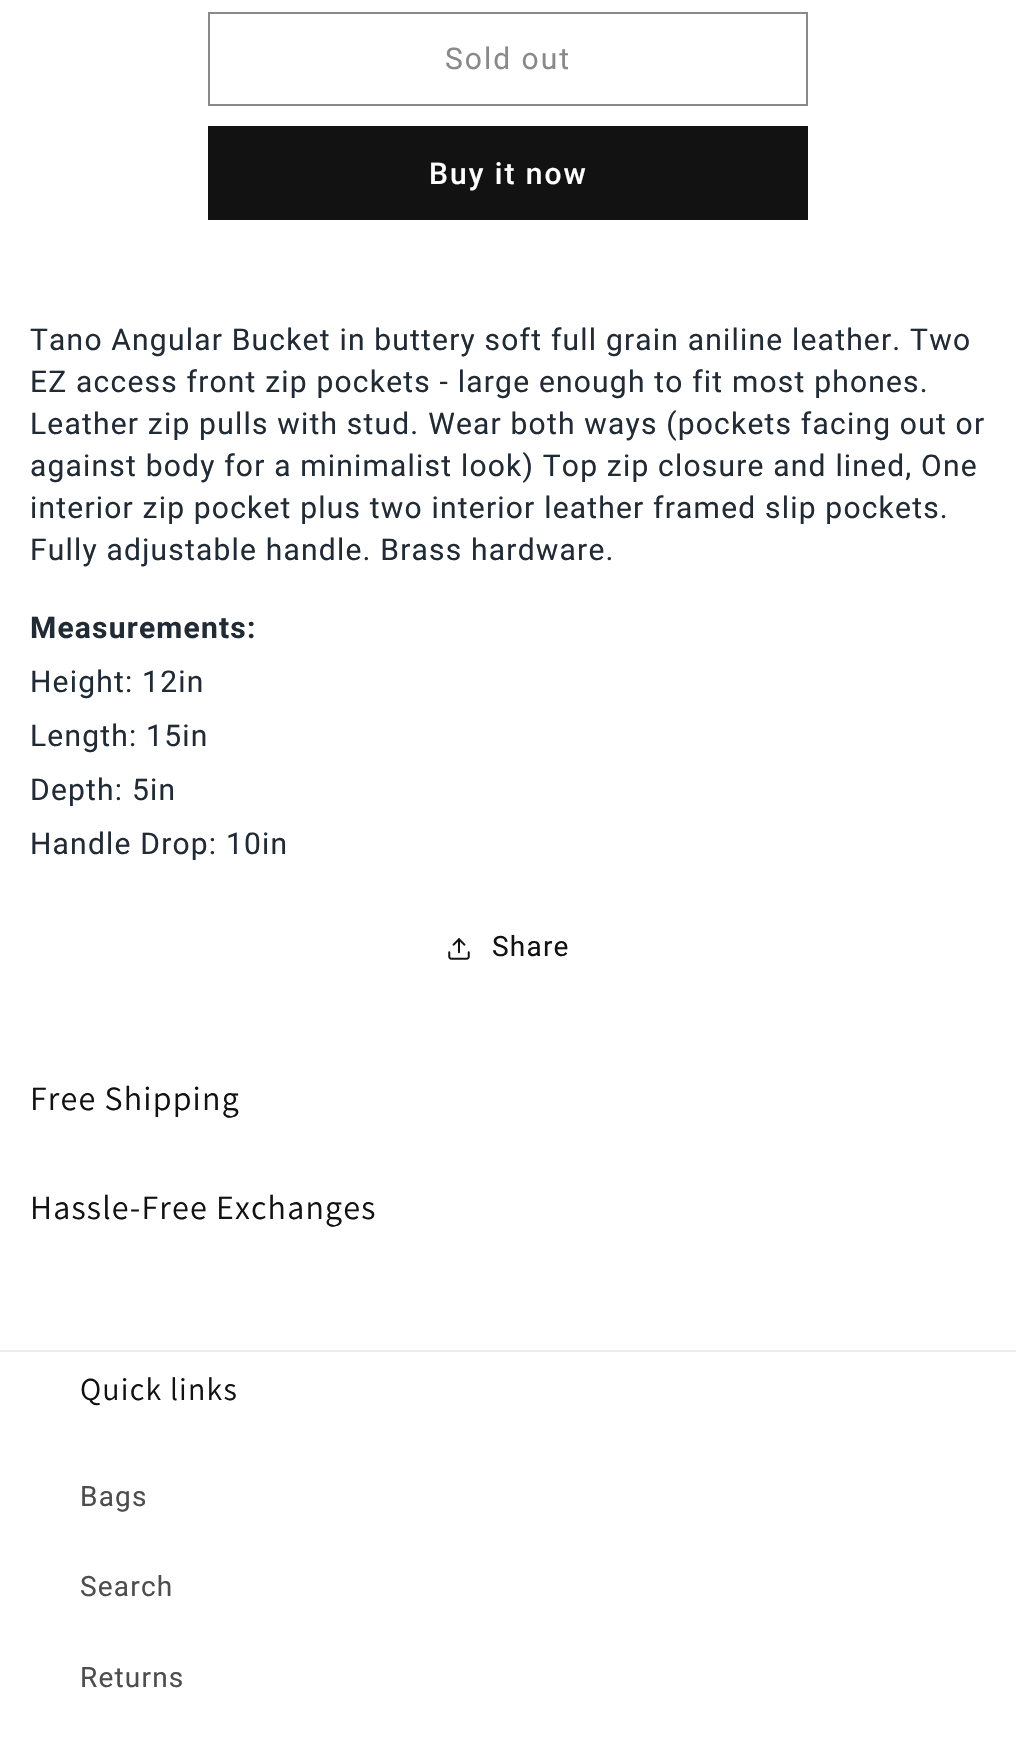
#include "include/core/SkBlurTypes.h"
#include "include/core/SkCanvas.h"
#include "include/core/SkData.h"
#include "include/core/SkFont.h"
#include "include/core/SkFontMgr.h"
#include "include/core/SkImage.h"
#include "include/core/SkMaskFilter.h"
#include "include/core/SkPaint.h"
#include "include/core/SkPathBuilder.h"
#include "include/core/SkTextBlob.h"
#include "include/effects/SkDashPathEffect.h"
#include "include/effects/SkGradientShader.h"
#include "include/utils/SkParsePath.h"

extern sk_sp<SkFontMgr> fontMgr;

void draw(SkCanvas* canvas) {
  SkPaint p;
  p.setAntiAlias(true);
  auto spacedText = [&](const char* s, float x, float y, const SkFont& font, const SkPaint& ink, float letter, float word) {
    std::vector<SkGlyphID> glyphs(font.countText(s, strlen(s), SkTextEncoding::kUTF8));
    std::vector<float> xs(glyphs.size());
    font.textToGlyphs(s, strlen(s), SkTextEncoding::kUTF8, glyphs);
    font.getXPos(glyphs, xs, x);
    float extra = 0;
    for (size_t i = 0; i < glyphs.size(); i++) {
      xs[i] += extra;
      extra += letter + word * (glyphs[i] == font.unicharToGlyph(' '));
    }
    canvas->drawTextBlob(SkTextBlob::MakeFromPosHGlyphs(glyphs, xs, y, font), 0, 0, ink);
  };
  canvas->clear(SK_ColorWHITE);
  p.setStyle(SkPaint::kStroke_Style);
  p.setStrokeWidth(2);
  p.setColor(SkColorSetRGB(137, 137, 137));
  canvas->drawRect(SkRect::MakeLTRB(209, 13, 807, 105), p);
  p.setStyle(SkPaint::kFill_Style);
  p.setColor(SkColorSetRGB(18, 18, 18));
  canvas->drawRect(SkRect::MakeLTRB(208, 126, 808, 220), p);
  canvas->drawImageRect(SkImages::DeferredFromEncodedData(SkData::MakeFromFileName("images/1.png")), SkRect::MakeLTRB(448, 938, 470, 960), SkSamplingOptions());
  p.setColor(SkColorSetRGB(236, 236, 236));
  canvas->drawRect(SkRect::MakeLTRB(0, 1350, 1016, 1352), p);
  SkFont font1(fontMgr->matchFamilyStyle("Roboto", SkFontStyle::Normal()), 30);
  font1.setSubpixel(true);
  p.setColor(SkColorSetRGB(137, 137, 137));
  spacedText("Sold out", 445, 69, font1, p, 2, 0);
  SkFont font2(fontMgr->matchFamilyStyle("Roboto", SkFontStyle(500, SkFontStyle::kNormal_Width, SkFontStyle::kUpright_Slant)), 30);
  font2.setSubpixel(true);
  p.setColor(SK_ColorWHITE);
  spacedText("Buy it now", 429, 184, font2, p, 2, 0);
  p.setColor(SkColorSetRGB(33, 43, 54));
  spacedText("Tano Angular Bucket in buttery soft full grain aniline leather. Two", 30, 350, font1, p, 1.2f, 0);
  spacedText("EZ access front zip pockets - large enough to fit most phones.", 30, 392, font1, p, 1.2f, 0);
  spacedText("Leather zip pulls with stud. Wear both ways (pockets facing out or", 30, 434, font1, p, 1.2f, 0);
  spacedText("against body for a minimalist look) Top zip closure and lined, One", 30, 476, font1, p, 1.2f, 0);
  spacedText("interior zip pocket plus two interior leather framed slip pockets.", 30, 518, font1, p, 1.2f, 0);
  spacedText("Fully adjustable handle. Brass hardware.", 30, 560, font1, p, 1.2f, 0);
  SkFont font3(fontMgr->matchFamilyStyle("Roboto", SkFontStyle::Bold()), 30);
  font3.setSubpixel(true);
  spacedText("Measurements:", 30, 638, font3, p, 1.2f, 0);
  spacedText("Height: 12in", 30, 692, font1, p, 1.2f, 0);
  spacedText("Length: 15in", 30, 746, font1, p, 1.2f, 0);
  spacedText("Depth: 5in", 30, 800, font1, p, 1.2f, 0);
  spacedText("Handle Drop: 10in", 30, 854, font1, p, 1.2f, 0);
  SkFont font4(fontMgr->matchFamilyStyle("Roboto", SkFontStyle::Normal()), 28);
  font4.setSubpixel(true);
  p.setColor(SkColorSetRGB(18, 18, 18));
  spacedText("Share", 492, 956, font4, p, 1.2f, 0);
  SkFont font5(fontMgr->matchFamilyStyle("Assistant", SkFontStyle::Normal()), 34);
  font5.setSubpixel(true);
  spacedText("Free Shipping", 30, 1110, font5, p, 1.2f, 0);
  spacedText("Hassle-Free Exchanges", 30, 1219, font5, p, 1.2f, 0);
  SkFont font6(fontMgr->matchFamilyStyle("Assistant", SkFontStyle::Normal()), 32);
  font6.setSubpixel(true);
  spacedText("Quick links", 80, 1400, font6, p, 1.2f, 0);
  p.setColor(SkColorSetRGB(77, 77, 77));
  spacedText("Bags", 80, 1506, font4, p, 1.2f, 0);
  spacedText("Search", 80, 1596, font4, p, 1.2f, 0);
  spacedText("Returns", 80, 1687, font4, p, 1.2f, 0);
}
